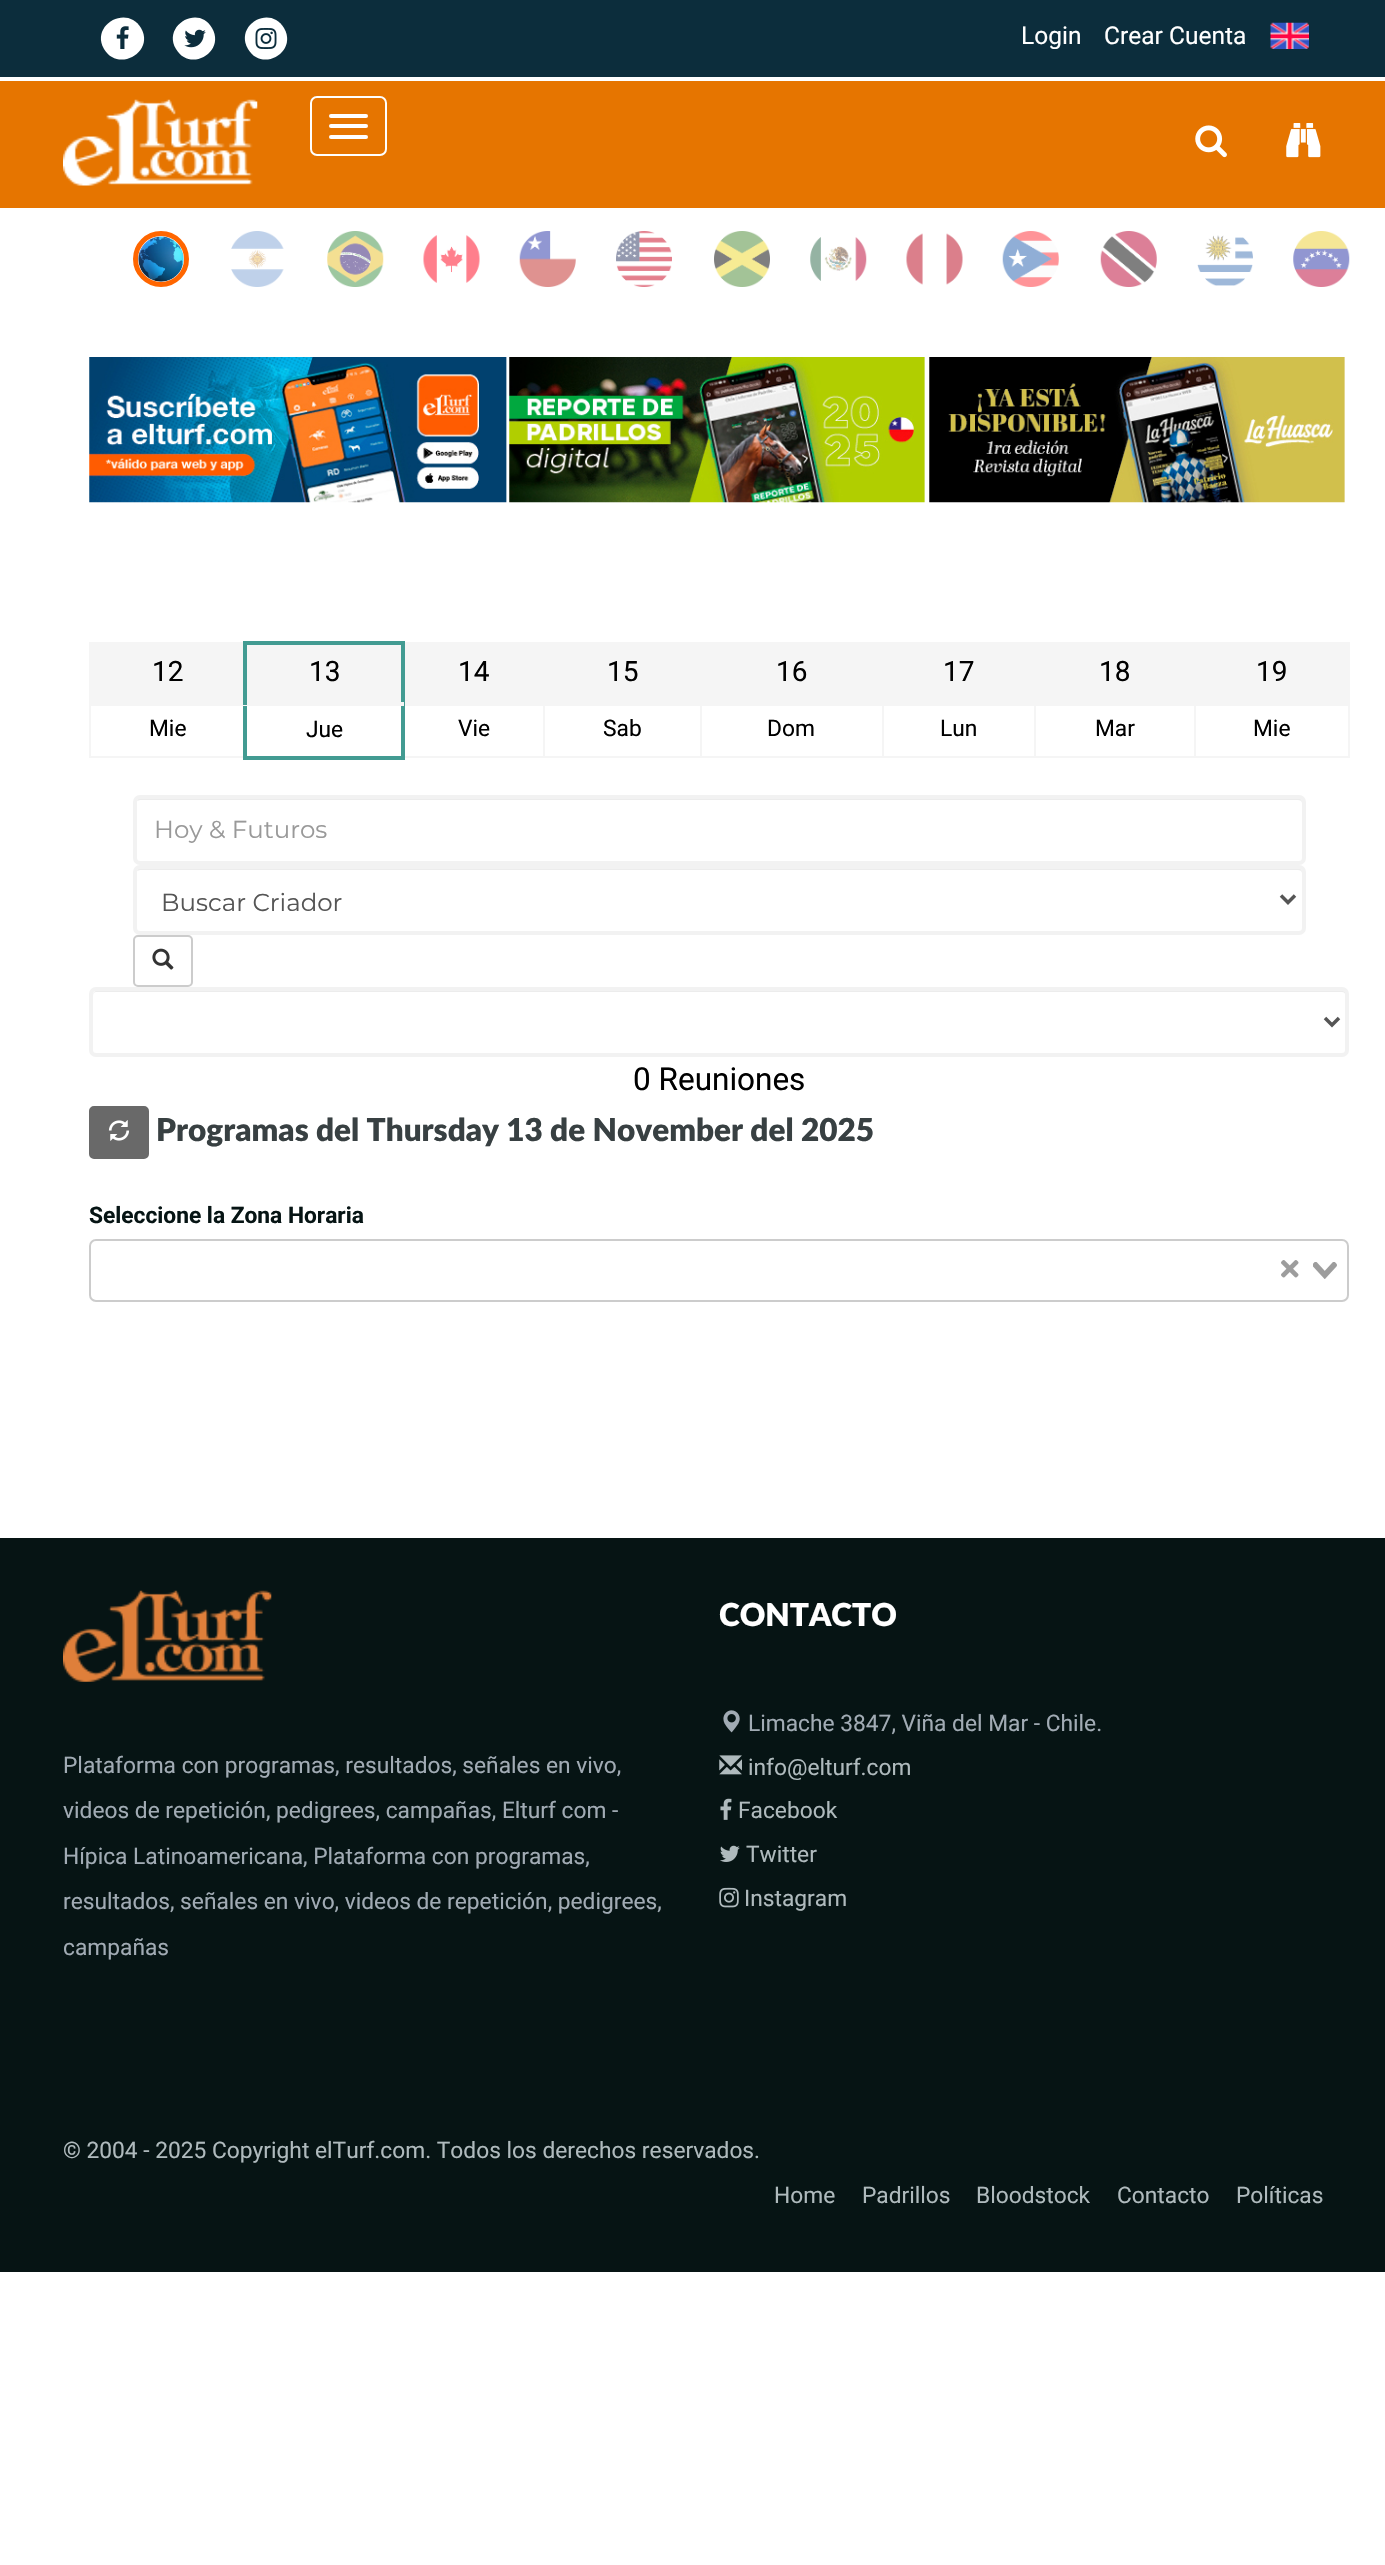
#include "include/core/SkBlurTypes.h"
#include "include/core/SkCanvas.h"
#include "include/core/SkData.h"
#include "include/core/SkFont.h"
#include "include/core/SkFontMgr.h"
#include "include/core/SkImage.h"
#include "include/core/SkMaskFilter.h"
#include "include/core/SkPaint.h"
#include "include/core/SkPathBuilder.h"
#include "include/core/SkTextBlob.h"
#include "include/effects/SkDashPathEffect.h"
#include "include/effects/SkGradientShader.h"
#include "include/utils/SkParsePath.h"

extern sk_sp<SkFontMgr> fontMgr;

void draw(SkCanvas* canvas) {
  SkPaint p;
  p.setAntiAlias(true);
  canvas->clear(SK_ColorWHITE);
  p.setColor(SkColorSetRGB(12, 45, 60));
  canvas->drawRect(SkRect::MakeLTRB(0, 0, 1385, 77), p);
  p.setColor(SK_ColorWHITE);
  canvas->drawPath(SkPathBuilder().moveTo(141, 28).cubicTo(155, 52, 118, 73, 104, 49).cubicTo(90, 25, 127, 4, 141, 28).close().detach(), p);
  canvas->drawImageRect(SkImages::DeferredFromEncodedData(SkData::MakeFromFileName("images/1.png")), SkRect::MakeLTRB(116, 26, 129, 49), SkSamplingOptions());
  canvas->drawPath(SkPathBuilder().moveTo(212, 28).cubicTo(226, 52, 190, 73, 176, 49).cubicTo(162, 25, 199, 4, 212, 28).close().detach(), p);
  canvas->drawImageRect(SkImages::DeferredFromEncodedData(SkData::MakeFromFileName("images/2.png")), SkRect::MakeLTRB(184, 29, 206, 48), SkSamplingOptions());
  canvas->drawPath(SkPathBuilder().moveTo(284, 28).cubicTo(298, 52, 262, 73, 248, 49).cubicTo(234, 25, 270, 4, 284, 28).close().detach(), p);
  canvas->drawImageRect(SkImages::DeferredFromEncodedData(SkData::MakeFromFileName("images/3.png")), SkRect::MakeLTRB(255, 28, 277, 49), SkSamplingOptions());
  canvas->drawImageRect(SkImages::DeferredFromEncodedData(SkData::MakeFromFileName("images/4.png")), SkRect::MakeLTRB(1270, 22, 1309, 49), SkSamplingOptions());
  p.setColor(SkColorSetRGB(230, 117, 0));
  canvas->drawRect(SkRect::MakeLTRB(0, 81, 1385, 208), p);
  canvas->drawImageRect(SkImages::DeferredFromEncodedData(SkData::MakeFromFileName("images/5.png")), SkRect::MakeLTRB(63, 99, 258, 186), SkSamplingOptions());
  p.setStyle(SkPaint::kStroke_Style);
  p.setStrokeWidth(2);
  p.setColor(SK_ColorWHITE);
  canvas->drawRoundRect(SkRect::MakeLTRB(311, 97, 386, 155), 6, 6, p);
  p.setStyle(SkPaint::kFill_Style);
  canvas->drawRoundRect(SkRect::MakeLTRB(329, 114, 368, 118), 2, 2, p);
  canvas->drawRoundRect(SkRect::MakeLTRB(329, 124, 368, 128), 2, 2, p);
  canvas->drawRoundRect(SkRect::MakeLTRB(329, 135, 368, 139), 2, 2, p);
  canvas->drawImageRect(SkImages::DeferredFromEncodedData(SkData::MakeFromFileName("images/6.png")), SkRect::MakeLTRB(1195, 125, 1227, 158), SkSamplingOptions());
  canvas->drawImageRect(SkImages::DeferredFromEncodedData(SkData::MakeFromFileName("images/7.png")), SkRect::MakeLTRB(1286, 123, 1321, 158), SkSamplingOptions());
  p.setStyle(SkPaint::kStroke_Style);
  p.setStrokeWidth(5);
  p.setColor(SkColorSetRGB(255, 102, 0));
  canvas->drawCircle(161, 259, 25.5f, p);
  canvas->drawImageRect(SkImages::DeferredFromEncodedData(SkData::MakeFromFileName("images/8.png")), SkRect::MakeLTRB(231, 231, 284, 287), SkSamplingOptions());
  canvas->drawImageRect(SkImages::DeferredFromEncodedData(SkData::MakeFromFileName("images/9.png")), SkRect::MakeLTRB(327, 231, 384, 287), SkSamplingOptions());
  canvas->drawImageRect(SkImages::DeferredFromEncodedData(SkData::MakeFromFileName("images/10.png")), SkRect::MakeLTRB(423, 235, 480, 283), SkSamplingOptions());
  canvas->drawImageRect(SkImages::DeferredFromEncodedData(SkData::MakeFromFileName("images/11.png")), SkRect::MakeLTRB(519, 231, 576, 287), SkSamplingOptions());
  canvas->drawImageRect(SkImages::DeferredFromEncodedData(SkData::MakeFromFileName("images/12.png")), SkRect::MakeLTRB(616, 231, 672, 287), SkSamplingOptions());
  canvas->drawImageRect(SkImages::DeferredFromEncodedData(SkData::MakeFromFileName("images/13.png")), SkRect::MakeLTRB(714, 231, 770, 287), SkSamplingOptions());
  canvas->drawImageRect(SkImages::DeferredFromEncodedData(SkData::MakeFromFileName("images/14.png")), SkRect::MakeLTRB(906, 233, 963, 285), SkSamplingOptions());
  canvas->drawImageRect(SkImages::DeferredFromEncodedData(SkData::MakeFromFileName("images/15.png")), SkRect::MakeLTRB(1002, 231, 1059, 287), SkSamplingOptions());
  canvas->drawImageRect(SkImages::DeferredFromEncodedData(SkData::MakeFromFileName("images/16.png")), SkRect::MakeLTRB(1100, 231, 1157, 287), SkSamplingOptions());
  canvas->drawImageRect(SkImages::DeferredFromEncodedData(SkData::MakeFromFileName("images/17.png")), SkRect::MakeLTRB(1197, 235, 1253, 286), SkSamplingOptions());
  canvas->drawImageRect(SkImages::DeferredFromEncodedData(SkData::MakeFromFileName("images/18.png")), SkRect::MakeLTRB(1293, 231, 1350, 287), SkSamplingOptions());
  canvas->drawImageRect(SkImages::DeferredFromEncodedData(SkData::MakeFromFileName("images/19.png")), SkRect::MakeLTRB(138, 236, 184, 282), SkSamplingOptions());
  canvas->drawImageRect(SkImages::DeferredFromEncodedData(SkData::MakeFromFileName("images/20.png")), SkRect::MakeLTRB(810, 237, 867, 281), SkSamplingOptions());
  canvas->drawImageRect(SkImages::DeferredFromEncodedData(SkData::MakeFromFileName("images/21.png")), SkRect::MakeLTRB(89, 357, 507, 503), SkSamplingOptions());
  canvas->drawImageRect(SkImages::DeferredFromEncodedData(SkData::MakeFromFileName("images/22.png")), SkRect::MakeLTRB(509, 357, 925, 503), SkSamplingOptions());
  canvas->drawImageRect(SkImages::DeferredFromEncodedData(SkData::MakeFromFileName("images/23.png")), SkRect::MakeLTRB(929, 357, 1345, 503), SkSamplingOptions());
  p.setStyle(SkPaint::kFill_Style);
  p.setColor(SkColorSetRGB(245, 245, 245));
  canvas->drawRect(SkRect::MakeLTRB(91, 642, 1348, 704), p);
  canvas->drawRect(SkRect::MakeLTRB(89, 704, 247, 706), p);
  canvas->drawRect(SkRect::MakeLTRB(89, 756, 247, 758), p);
  canvas->drawRect(SkRect::MakeLTRB(89, 704, 91, 758), p);
  canvas->drawRect(SkRect::MakeLTRB(89, 642, 91, 705), p);
  p.setColor(SkColorSetRGB(66, 155, 146));
  canvas->drawRect(SkRect::MakeLTRB(243, 641, 404, 645), p);
  p.setColor(SkColorSetRGB(245, 245, 245));
  canvas->drawRect(SkRect::MakeLTRB(1194, 704, 1349, 706), p);
  canvas->drawRect(SkRect::MakeLTRB(1348, 642, 1350, 758), p);
  canvas->drawRect(SkRect::MakeLTRB(1194, 756, 1349, 758), p);
  canvas->drawRect(SkRect::MakeLTRB(1194, 704, 1196, 758), p);
  canvas->drawRect(SkRect::MakeLTRB(1034, 704, 1195, 706), p);
  canvas->drawRect(SkRect::MakeLTRB(1034, 756, 1195, 758), p);
  canvas->drawRect(SkRect::MakeLTRB(1034, 704, 1036, 758), p);
  canvas->drawRect(SkRect::MakeLTRB(882, 704, 1036, 706), p);
  canvas->drawRect(SkRect::MakeLTRB(882, 756, 1036, 758), p);
  canvas->drawRect(SkRect::MakeLTRB(882, 704, 884, 758), p);
  canvas->drawRect(SkRect::MakeLTRB(700, 704, 884, 706), p);
  canvas->drawRect(SkRect::MakeLTRB(700, 756, 884, 758), p);
  canvas->drawRect(SkRect::MakeLTRB(700, 704, 702, 758), p);
  canvas->drawRect(SkRect::MakeLTRB(543, 704, 702, 706), p);
  canvas->drawRect(SkRect::MakeLTRB(543, 756, 702, 758), p);
  canvas->drawRect(SkRect::MakeLTRB(543, 704, 545, 758), p);
  canvas->drawRect(SkRect::MakeLTRB(403, 704, 544, 706), p);
  canvas->drawRect(SkRect::MakeLTRB(403, 756, 544, 758), p);
  p.setColor(SkColorSetRGB(66, 155, 146));
  canvas->drawRect(SkRect::MakeLTRB(401, 702, 405, 760), p);
  canvas->drawRect(SkRect::MakeLTRB(401, 641, 405, 705), p);
  canvas->drawRect(SkRect::MakeLTRB(243, 756, 404, 760), p);
  canvas->drawRect(SkRect::MakeLTRB(243, 702, 247, 760), p);
  p.setColor(SkColorSetRGB(245, 245, 245));
  canvas->drawRect(SkRect::MakeLTRB(243, 702, 404, 706), p);
  p.setColor(SkColorSetRGB(66, 155, 146));
  canvas->drawRect(SkRect::MakeLTRB(243, 641, 247, 705), p);
  p.setColor(SkColorSetRGB(236, 236, 236));
  canvas->drawPath(SkPathBuilder().moveTo(140, 800).lineTo(1298, 800).cubicTo(1300, 800, 1302, 801, 1302, 803).lineTo(1302, 802).cubicTo(1302, 800, 1300, 798, 1298, 798).lineTo(141, 798).cubicTo(139, 798, 138, 799, 137, 801).close().detach(), p);
  p.setStyle(SkPaint::kStroke_Style);
  p.setStrokeWidth(4);
  p.setColor(SkColorSetRGB(242, 242, 242));
  canvas->drawRoundRect(SkRect::MakeLTRB(135, 797, 1304, 863), 5, 5, p);
  p.setStyle(SkPaint::kFill_Style);
  p.setColor(SkColorSetRGB(236, 236, 236));
  canvas->drawPath(SkPathBuilder().moveTo(140, 870).lineTo(1298, 870).cubicTo(1300, 870, 1302, 871, 1302, 873).lineTo(1302, 872).cubicTo(1302, 870, 1300, 868, 1298, 868).lineTo(141, 868).cubicTo(139, 868, 138, 869, 137, 871).close().detach(), p);
  p.setStyle(SkPaint::kStroke_Style);
  p.setColor(SkColorSetRGB(242, 242, 242));
  canvas->drawRoundRect(SkRect::MakeLTRB(135, 867, 1304, 933), 5, 5, p);
  p.setStrokeWidth(3.5f);
  p.setColor(SkColorSetRGB(85, 85, 85));
  canvas->drawPath(SkPathBuilder().moveTo(1281, 895.5f).lineTo(1288, 902.5f).lineTo(1295, 895.5f).detach(), p);
  p.setStrokeWidth(2);
  p.setColor(SkColorSetRGB(204, 204, 204));
  canvas->drawRoundRect(SkRect::MakeLTRB(134, 936, 192, 986), 4, 4, p);
  canvas->drawImageRect(SkImages::DeferredFromEncodedData(SkData::MakeFromFileName("images/24.png")), SkRect::MakeLTRB(152, 948, 174, 970), SkSamplingOptions());
  p.setStyle(SkPaint::kFill_Style);
  p.setColor(SkColorSetRGB(236, 236, 236));
  canvas->drawPath(SkPathBuilder().moveTo(96, 992).lineTo(1342, 992).cubicTo(1344, 992, 1346, 994, 1346, 996).cubicTo(1346, 993, 1345, 991, 1342, 991).lineTo(97, 991).cubicTo(94, 991, 93, 993, 93, 996).cubicTo(93, 994, 94, 992, 96, 992).close().detach(), p);
  p.setStyle(SkPaint::kStroke_Style);
  p.setStrokeWidth(4);
  p.setColor(SkColorSetRGB(242, 242, 242));
  canvas->drawRoundRect(SkRect::MakeLTRB(91, 989, 1347, 1055), 5, 5, p);
  p.setStrokeWidth(3.5f);
  p.setColor(SkColorSetRGB(85, 85, 85));
  canvas->drawPath(SkPathBuilder().moveTo(1325, 1018).lineTo(1332, 1025).lineTo(1339, 1018).detach(), p);
  p.setStyle(SkPaint::kFill_Style);
  p.setColor(SkColorSetRGB(105, 105, 105));
  canvas->drawRoundRect(SkRect::MakeLTRB(90, 1107, 148, 1158), 4, 4, p);
  p.setStyle(SkPaint::kStroke_Style);
  p.setStrokeWidth(2);
  canvas->drawRoundRect(SkRect::MakeLTRB(90, 1107, 148, 1158), 4, 4, p);
  canvas->drawImageRect(SkImages::DeferredFromEncodedData(SkData::MakeFromFileName("images/25.png")), SkRect::MakeLTRB(108, 1120, 130, 1141), SkSamplingOptions());
  p.setColor(SkColorSetRGB(204, 204, 204));
  canvas->drawRoundRect(SkRect::MakeLTRB(90, 1240, 1348, 1301), 6, 6, p);
  canvas->drawImageRect(SkImages::DeferredFromEncodedData(SkData::MakeFromFileName("images/26.png")), SkRect::MakeLTRB(1281, 1260, 1299, 1278), SkSamplingOptions());
  canvas->drawImageRect(SkImages::DeferredFromEncodedData(SkData::MakeFromFileName("images/27.png")), SkRect::MakeLTRB(1313, 1262, 1337, 1279), SkSamplingOptions());
  p.setStyle(SkPaint::kFill_Style);
  p.setColor(SkColorSetRGB(6, 20, 20));
  canvas->drawRect(SkRect::MakeLTRB(0, 1538, 1385, 2272), p);
  canvas->drawImageRect(SkImages::DeferredFromEncodedData(SkData::MakeFromFileName("images/28.png")), SkRect::MakeLTRB(63, 1590, 272, 1682), SkSamplingOptions());
  canvas->drawImageRect(SkImages::DeferredFromEncodedData(SkData::MakeFromFileName("images/29.png")), SkRect::MakeLTRB(723, 1710, 740, 1733), SkSamplingOptions());
  canvas->drawImageRect(SkImages::DeferredFromEncodedData(SkData::MakeFromFileName("images/30.png")), SkRect::MakeLTRB(719, 1755, 742, 1775), SkSamplingOptions());
  canvas->drawImageRect(SkImages::DeferredFromEncodedData(SkData::MakeFromFileName("images/31.png")), SkRect::MakeLTRB(720, 1798, 732, 1820), SkSamplingOptions());
  canvas->drawImageRect(SkImages::DeferredFromEncodedData(SkData::MakeFromFileName("images/32.png")), SkRect::MakeLTRB(720, 1845, 740, 1862), SkSamplingOptions());
  canvas->drawImageRect(SkImages::DeferredFromEncodedData(SkData::MakeFromFileName("images/33.png")), SkRect::MakeLTRB(719, 1887, 739, 1908), SkSamplingOptions());
  SkFont font1(fontMgr->matchFamilyStyle("Roboto", SkFontStyle::Normal()), 24.5f);
  font1.setSubpixel(true);
  p.setColor(SK_ColorWHITE);
  canvas->drawString("Login", 1021, 44, font1, p);
  canvas->drawString("Crear Cuenta", 1104, 44, font1, p);
  SkFont font2(fontMgr->matchFamilyStyle("Roboto", SkFontStyle::Normal()), 28);
  font2.setSubpixel(true);
  p.setColor(SK_ColorBLACK);
  canvas->drawString("12", 152, 681, font2, p);
  canvas->drawString("13", 309, 681, font2, p);
  canvas->drawString("14", 458, 681, font2, p);
  canvas->drawString("15", 607, 681, font2, p);
  canvas->drawString("16", 776, 681, font2, p);
  canvas->drawString("17", 943, 681, font2, p);
  canvas->drawString("18", 1099, 681, font2, p);
  canvas->drawString("19", 1256, 681, font2, p);
  SkFont font3(fontMgr->matchFamilyStyle("Roboto", SkFontStyle::Normal()), 22.75f);
  font3.setSubpixel(true);
  canvas->drawString("Mie", 149, 736, font3, p);
  canvas->drawString("Jue", 306, 737, font3, p);
  canvas->drawString("Vie", 458, 736, font3, p);
  canvas->drawString("Sab", 603, 736, font3, p);
  canvas->drawString("Dom", 767, 736, font3, p);
  canvas->drawString("Lun", 940, 736, font3, p);
  canvas->drawString("Mar", 1095, 736, font3, p);
  canvas->drawString("Mie", 1253, 736, font3, p);
  SkFont font4(fontMgr->matchFamilyStyle("Montserrat", SkFontStyle::Normal()), 24.5f);
  font4.setSubpixel(true);
  p.setColor(SkColorSetRGB(153, 153, 153));
  canvas->drawString("Hoy & Futuros", 154, 838, font4, p);
  p.setColor(SkColorSetRGB(85, 85, 85));
  canvas->drawString("Buscar Criador", 161, 911, font4, p);
  SkFont font5(fontMgr->matchFamilyStyle("Roboto", SkFontStyle::Normal()), 31.5f);
  font5.setSubpixel(true);
  p.setColor(SK_ColorBLACK);
  canvas->drawString("0 Reuniones", 633, 1090, font5, p);
  SkFont font6(fontMgr->matchFamilyStyle("Lato", SkFontStyle(900, SkFontStyle::kNormal_Width, SkFontStyle::kUpright_Slant)), 31.5f);
  font6.setSubpixel(true);
  p.setColor(SkColorSetRGB(56, 64, 66));
  canvas->drawString("Programas del Thursday 13 de November del 2025", 156, 1141, font6, p);
  SkFont font7(fontMgr->matchFamilyStyle("Roboto", SkFontStyle::Bold()), 22.75f);
  font7.setSubpixel(true);
  p.setColor(SkColorSetRGB(6, 20, 20));
  canvas->drawString("Seleccione la Zona Horaria", 89, 1223, font7, p);
  p.setColor(SkColorSetRGB(161, 171, 180));
  canvas->drawString("Plataforma con programas, resultados, señales en vivo,", 63, 1773, font3, p);
  canvas->drawString("videos de repetición, pedigrees, campañas, Elturf com -", 63, 1818, font3, p);
  canvas->drawString("Hípica Latinoamericana, Plataforma con programas,", 63, 1864, font3, p);
  canvas->drawString("resultados, señales en vivo, videos de repetición, pedigrees,", 63, 1909, font3, p);
  canvas->drawString("campañas", 63, 1955, font3, p);
  p.setColor(SK_ColorWHITE);
  canvas->drawString("CONTACTO", 719, 1626, font6, p);
  p.setColor(SkColorSetRGB(161, 171, 180));
  canvas->drawString("Limache 3847, Viña del Mar - Chile.", 748, 1731, font3, p);
  p.setColor(SkColorSetRGB(175, 186, 189));
  canvas->drawString("info@elturf.com", 748, 1775, font3, p);
  canvas->drawString("Facebook", 738, 1818, font3, p);
  canvas->drawString("Twitter", 746, 1862, font3, p);
  canvas->drawString("Instagram", 744, 1906, font3, p);
  canvas->drawString("© 2004 - 2025 Copyright elTurf.com. Todos los derechos reservados.", 63, 2158, font3, p);
  canvas->drawString("Home", 774, 2203, font3, p);
  canvas->drawString("Padrillos", 862, 2203, font3, p);
  canvas->drawString("Bloodstock", 976, 2203, font3, p);
  canvas->drawString("Contacto", 1117, 2203, font3, p);
  canvas->drawString("Políticas", 1236, 2203, font3, p);
}
